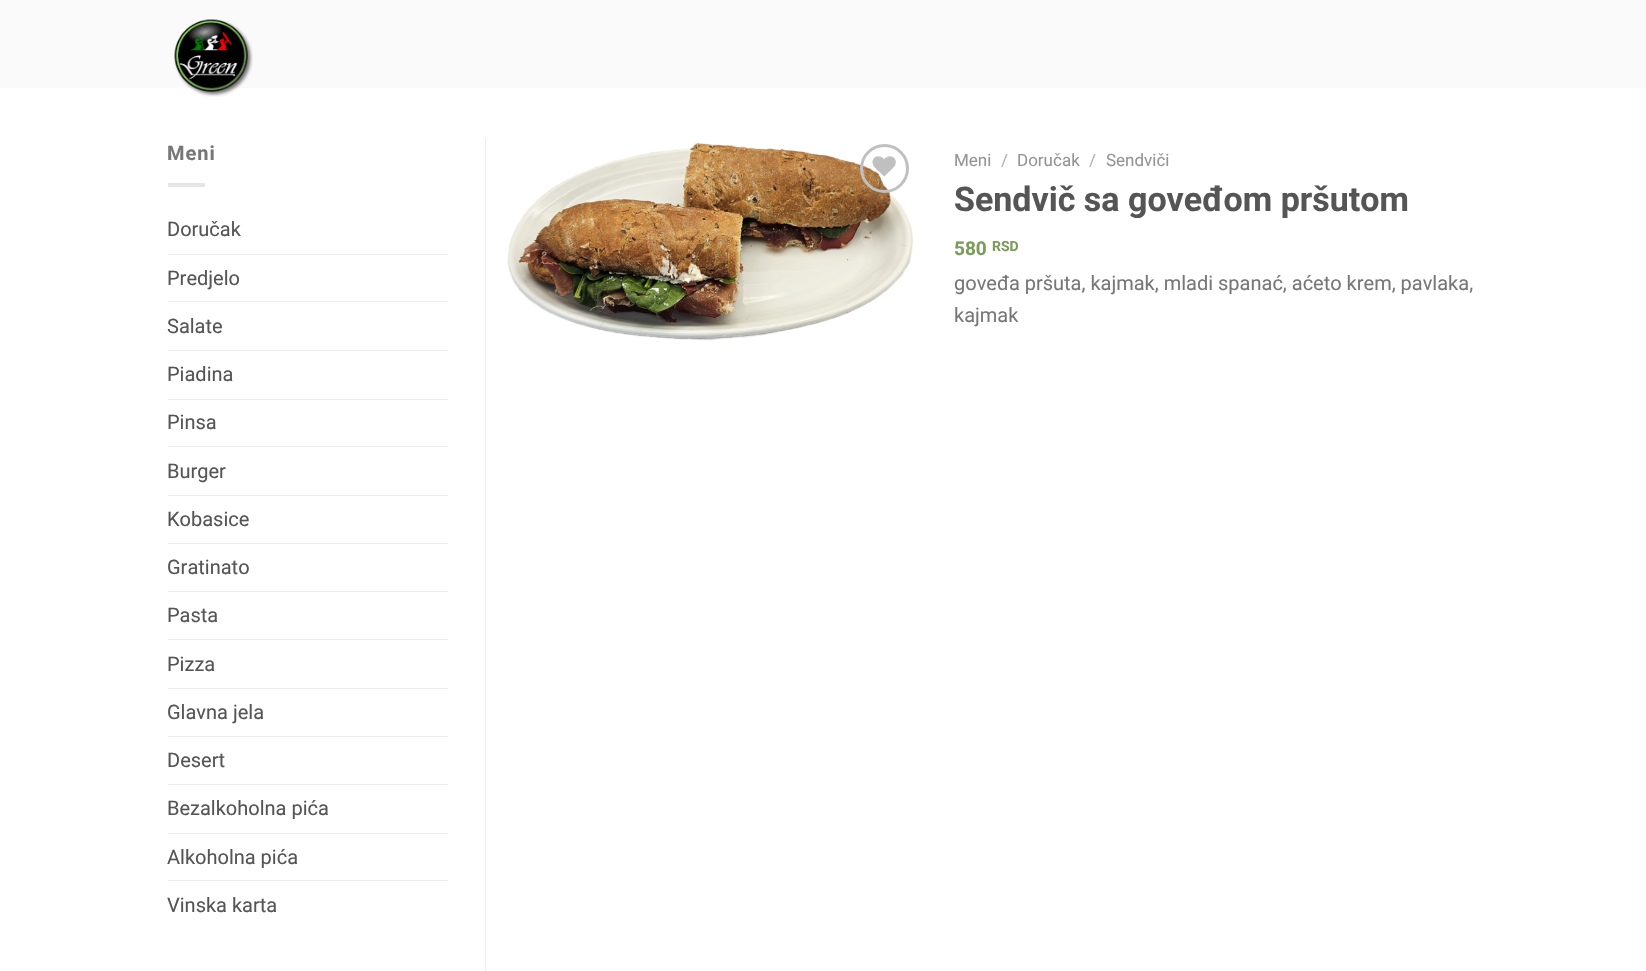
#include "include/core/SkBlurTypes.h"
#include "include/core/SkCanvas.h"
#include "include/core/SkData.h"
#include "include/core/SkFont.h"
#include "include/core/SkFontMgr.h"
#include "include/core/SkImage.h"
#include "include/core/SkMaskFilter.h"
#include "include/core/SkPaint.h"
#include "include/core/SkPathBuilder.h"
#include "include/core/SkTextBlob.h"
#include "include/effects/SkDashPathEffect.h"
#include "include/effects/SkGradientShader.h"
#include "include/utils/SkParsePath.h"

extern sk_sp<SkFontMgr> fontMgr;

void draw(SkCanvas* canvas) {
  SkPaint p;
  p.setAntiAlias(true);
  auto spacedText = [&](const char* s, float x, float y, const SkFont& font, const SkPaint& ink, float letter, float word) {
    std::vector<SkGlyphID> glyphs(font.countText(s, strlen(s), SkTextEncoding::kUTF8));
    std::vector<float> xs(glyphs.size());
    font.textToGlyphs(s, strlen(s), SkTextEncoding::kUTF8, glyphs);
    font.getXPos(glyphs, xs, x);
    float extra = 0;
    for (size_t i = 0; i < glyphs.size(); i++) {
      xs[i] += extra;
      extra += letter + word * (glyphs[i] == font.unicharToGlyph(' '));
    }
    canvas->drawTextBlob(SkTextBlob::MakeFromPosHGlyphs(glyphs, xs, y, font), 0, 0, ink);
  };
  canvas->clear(SK_ColorWHITE);
  p.setColor(SkColorSetRGB(250, 250, 250));
  canvas->drawRect(SkRect::MakeLTRB(0, 0, 1646, 88), p);
  canvas->drawImageRect(SkImages::DeferredFromEncodedData(SkData::MakeFromFileName("images/1.png")), SkRect::MakeLTRB(174, 19, 253, 97), SkSamplingOptions());
  p.setColor(SkColorSetRGB(236, 236, 236));
  canvas->drawRect(SkRect::MakeLTRB(485, 138, 486, 971), p);
  p.setColor(SkColorSetRGB(230, 230, 230));
  canvas->drawRect(SkRect::MakeLTRB(168, 183, 205, 187), p);
  p.setColor(SkColorSetRGB(236, 236, 236));
  canvas->drawRect(SkRect::MakeLTRB(168, 254, 448, 255), p);
  canvas->drawRect(SkRect::MakeLTRB(168, 301, 448, 302), p);
  canvas->drawRect(SkRect::MakeLTRB(168, 350, 448, 351), p);
  canvas->drawRect(SkRect::MakeLTRB(168, 399, 448, 400), p);
  canvas->drawRect(SkRect::MakeLTRB(168, 446, 448, 447), p);
  canvas->drawRect(SkRect::MakeLTRB(168, 495, 448, 496), p);
  canvas->drawRect(SkRect::MakeLTRB(168, 543, 448, 544), p);
  canvas->drawRect(SkRect::MakeLTRB(168, 591, 448, 592), p);
  canvas->drawRect(SkRect::MakeLTRB(168, 639, 448, 640), p);
  canvas->drawRect(SkRect::MakeLTRB(168, 688, 448, 689), p);
  canvas->drawRect(SkRect::MakeLTRB(168, 736, 448, 737), p);
  canvas->drawRect(SkRect::MakeLTRB(168, 784, 448, 785), p);
  canvas->drawRect(SkRect::MakeLTRB(168, 833, 448, 834), p);
  canvas->drawRect(SkRect::MakeLTRB(168, 880, 448, 881), p);
  canvas->drawImageRect(SkImages::DeferredFromEncodedData(SkData::MakeFromFileName("images/2.png")), SkRect::MakeLTRB(507, 142, 914, 341), SkSamplingOptions());
  p.setStyle(SkPaint::kStroke_Style);
  p.setStrokeWidth(3);
  p.setColor(SkColorSetRGB(192, 192, 192));
  canvas->drawCircle(884.5f, 168.5f, 23, p);
  canvas->drawImageRect(SkImages::DeferredFromEncodedData(SkData::MakeFromFileName("images/3.png")), SkRect::MakeLTRB(872, 156, 896, 177), SkSamplingOptions());
  SkFont font1(fontMgr->matchFamilyStyle("Roboto", SkFontStyle::Bold()), 20);
  font1.setSubpixel(true);
  p.setStyle(SkPaint::kFill_Style);
  p.setColor(SkColorSetRGB(119, 119, 119));
  spacedText("Meni", 167, 160, font1, p, 1, 0);
  SkFont font2(fontMgr->matchFamilyStyle("Roboto", SkFontStyle::Normal()), 20);
  font2.setSubpixel(true);
  p.setColor(SkColorSetRGB(85, 85, 85));
  canvas->drawString("Doručak", 167, 236, font2, p);
  canvas->drawString("Predjelo", 167, 285, font2, p);
  canvas->drawString("Salate", 167, 333, font2, p);
  canvas->drawString("Piadina", 167, 381, font2, p);
  canvas->drawString("Pinsa", 167, 429, font2, p);
  canvas->drawString("Burger", 167, 478, font2, p);
  canvas->drawString("Kobasice", 167, 526, font2, p);
  canvas->drawString("Gratinato", 167, 574, font2, p);
  canvas->drawString("Pasta", 167, 622, font2, p);
  canvas->drawString("Pizza", 167, 671, font2, p);
  canvas->drawString("Glavna jela", 167, 719, font2, p);
  canvas->drawString("Desert", 167, 767, font2, p);
  canvas->drawString("Bezalkoholna pića", 167, 815, font2, p);
  canvas->drawString("Alkoholna pića", 167, 864, font2, p);
  canvas->drawString("Vinska karta", 167, 912, font2, p);
  SkFont font3(fontMgr->matchFamilyStyle("Roboto", SkFontStyle::Normal()), 17);
  font3.setSubpixel(true);
  p.setColor(SkColorSetRGB(148, 148, 148));
  canvas->drawString("Meni", 954, 166, font3, p);
  p.setColor(SkColorSetRGB(178, 178, 178));
  canvas->drawString("/", 1001, 166, font3, p);
  p.setColor(SkColorSetRGB(148, 148, 148));
  canvas->drawString("Doručak", 1017, 166, font3, p);
  p.setColor(SkColorSetRGB(178, 178, 178));
  canvas->drawString("/", 1089, 166, font3, p);
  p.setColor(SkColorSetRGB(148, 148, 148));
  canvas->drawString("Sendviči", 1106, 166, font3, p);
  SkFont font4(fontMgr->matchFamilyStyle("Roboto", SkFontStyle::Bold()), 34);
  font4.setSubpixel(true);
  p.setColor(SkColorSetRGB(85, 85, 85));
  canvas->drawString("Sendvič sa goveđom pršutom", 954, 211, font4, p);
  SkFont font5(fontMgr->matchFamilyStyle("Roboto", SkFontStyle::Bold()), 19);
  font5.setSubpixel(true);
  p.setColor(SkColorSetRGB(122, 156, 89));
  canvas->drawString("580", 954, 255, font5, p);
  SkFont font6(fontMgr->matchFamilyStyle("Roboto", SkFontStyle::Bold()), 14);
  font6.setSubpixel(true);
  canvas->drawString("RSD", 992, 251, font6, p);
  p.setColor(SkColorSetRGB(119, 119, 119));
  canvas->drawString("goveđa pršuta, kajmak, mladi spanać, aćeto krem, pavlaka,", 954, 290, font2, p);
  canvas->drawString("kajmak", 954, 322, font2, p);
}
